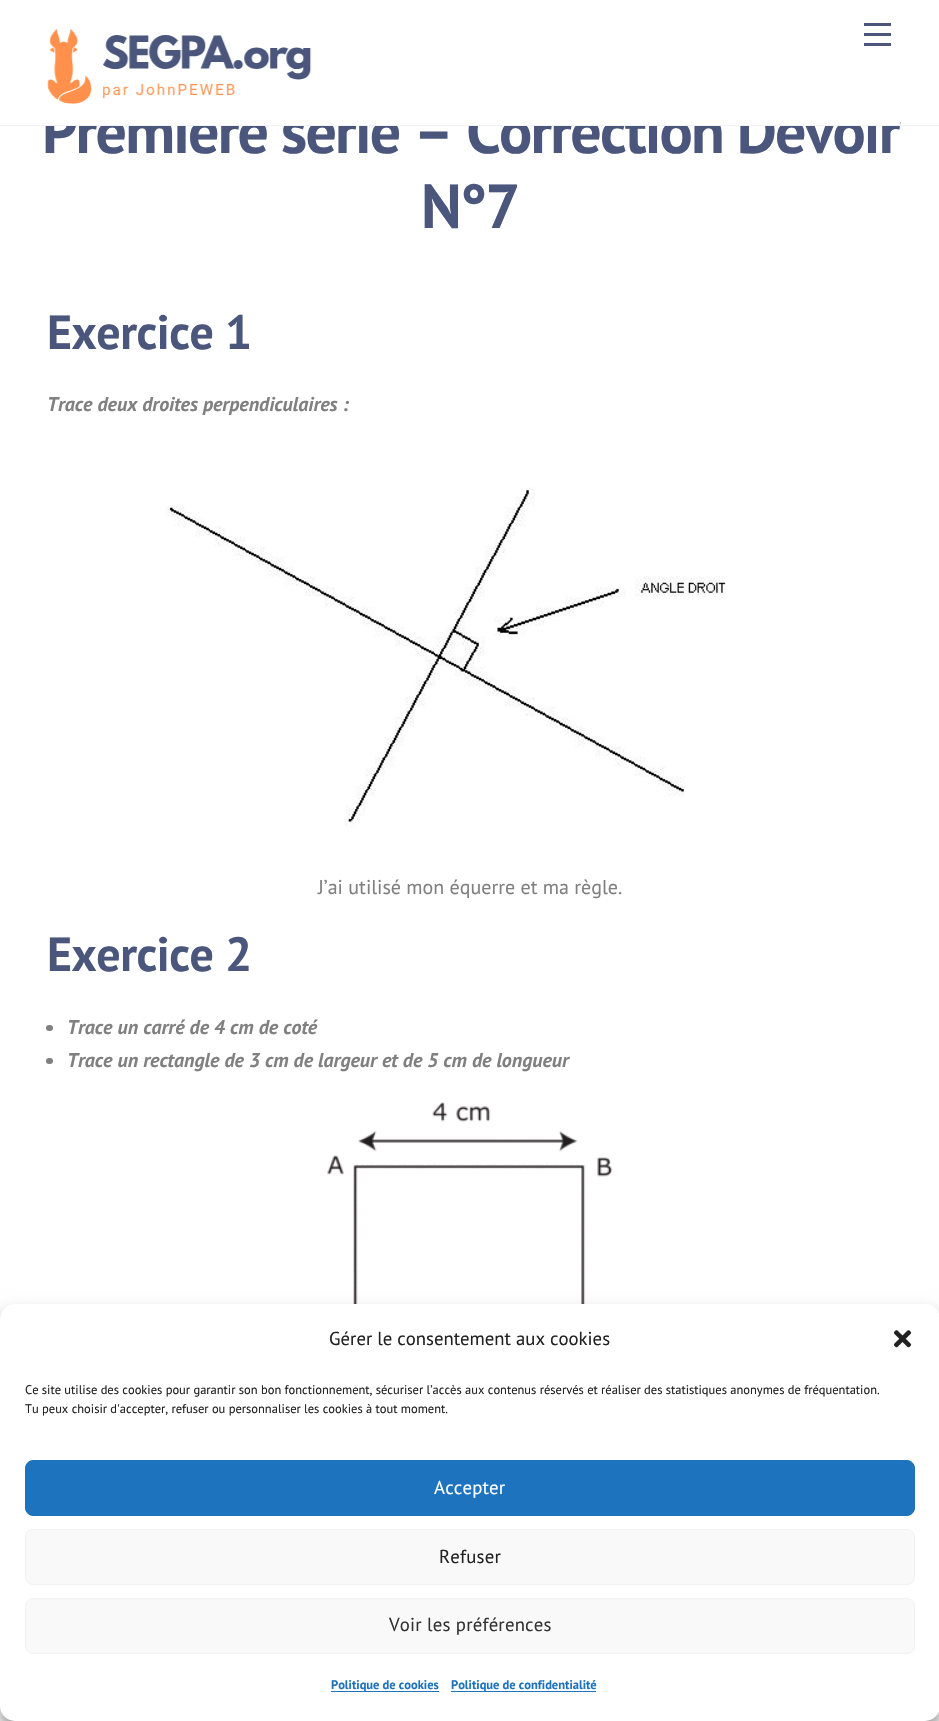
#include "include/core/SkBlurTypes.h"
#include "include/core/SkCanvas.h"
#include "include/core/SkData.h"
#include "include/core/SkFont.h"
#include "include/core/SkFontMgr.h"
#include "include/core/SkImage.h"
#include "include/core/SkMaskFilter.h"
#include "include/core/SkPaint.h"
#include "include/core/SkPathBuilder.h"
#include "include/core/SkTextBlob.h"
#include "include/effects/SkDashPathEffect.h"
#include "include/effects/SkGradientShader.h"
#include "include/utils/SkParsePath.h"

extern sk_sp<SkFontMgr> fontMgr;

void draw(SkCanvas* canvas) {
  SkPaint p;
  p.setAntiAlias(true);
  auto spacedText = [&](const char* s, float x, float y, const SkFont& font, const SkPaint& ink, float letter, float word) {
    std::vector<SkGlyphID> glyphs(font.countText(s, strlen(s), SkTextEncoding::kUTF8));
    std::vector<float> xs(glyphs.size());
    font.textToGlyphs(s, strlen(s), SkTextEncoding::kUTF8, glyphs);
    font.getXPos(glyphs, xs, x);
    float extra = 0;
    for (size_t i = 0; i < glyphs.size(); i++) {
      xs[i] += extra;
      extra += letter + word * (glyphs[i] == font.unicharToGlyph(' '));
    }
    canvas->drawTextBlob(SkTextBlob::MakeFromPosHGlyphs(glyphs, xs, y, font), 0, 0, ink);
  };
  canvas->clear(SK_ColorWHITE);
  canvas->drawImageRect(SkImages::DeferredFromEncodedData(SkData::MakeFromFileName("images/1.png")), SkRect::MakeLTRB(47, 29, 312, 104), SkSamplingOptions());
  p.setColor(SkColorSetRGB(75, 86, 125));
  canvas->drawRect(SkRect::MakeLTRB(864, 43, 891, 46), p);
  canvas->drawRect(SkRect::MakeLTRB(864, 23, 891, 26), p);
  canvas->drawRect(SkRect::MakeLTRB(864, 33, 891, 36), p);
  canvas->drawImageRect(SkImages::DeferredFromEncodedData(SkData::MakeFromFileName("images/2.png")), SkRect::MakeLTRB(165, 487, 726, 827), SkSamplingOptions());
  p.setColor(SkColorSetRGB(128, 128, 128));
  canvas->drawRoundRect(SkRect::MakeLTRB(46, 1025, 53, 1031), 3, 3, p);
  canvas->drawRoundRect(SkRect::MakeLTRB(46, 1058, 53, 1064), 3, 3, p);
  canvas->drawImageRect(SkImages::DeferredFromEncodedData(SkData::MakeFromFileName("images/3.png")), SkRect::MakeLTRB(327, 1102, 613, 1304), SkSamplingOptions());
  p.setColor(SkColorSetARGB(59, 0, 0, 0));
  p.setMaskFilter(SkMaskFilter::MakeBlur(kNormal_SkBlurStyle, 4));
  canvas->drawRoundRect(SkRect::MakeLTRB(0, 1311, 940, 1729), 15, 15, p);
  p.setMaskFilter(nullptr);
  p.setColor(SkColorSetARGB(48, 0, 0, 0));
  p.setMaskFilter(SkMaskFilter::MakeBlur(kNormal_SkBlurStyle, 12.5f));
  canvas->drawRoundRect(SkRect::MakeLTRB(0, 1316, 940, 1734), 15, 15, p);
  p.setMaskFilter(nullptr);
  p.setColor(SK_ColorWHITE);
  canvas->drawRoundRect(SkRect::MakeLTRB(0, 1304, 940, 1721), 15, 15, p);
  canvas->drawImageRect(SkImages::DeferredFromEncodedData(SkData::MakeFromFileName("images/4.png")), SkRect::MakeLTRB(893, 1330, 912, 1348), SkSamplingOptions());
  p.setColor(SkColorSetRGB(30, 115, 190));
  canvas->drawRoundRect(SkRect::MakeLTRB(25.5f, 1460.5f, 914.5f, 1515.5f), 7.5f, 7.5f, p);
  p.setStyle(SkPaint::kStroke_Style);
  p.setStrokeWidth(1);
  canvas->drawRoundRect(SkRect::MakeLTRB(25.5f, 1460.5f, 914.5f, 1515.5f), 7.5f, 7.5f, p);
  p.setStyle(SkPaint::kFill_Style);
  p.setColor(SkColorSetRGB(249, 249, 249));
  canvas->drawRoundRect(SkRect::MakeLTRB(25.5f, 1529.5f, 914.5f, 1584.5f), 7.5f, 7.5f, p);
  p.setStyle(SkPaint::kStroke_Style);
  p.setColor(SkColorSetRGB(242, 242, 242));
  canvas->drawRoundRect(SkRect::MakeLTRB(25.5f, 1529.5f, 914.5f, 1584.5f), 7.5f, 7.5f, p);
  p.setStyle(SkPaint::kFill_Style);
  p.setColor(SkColorSetRGB(249, 249, 249));
  canvas->drawRoundRect(SkRect::MakeLTRB(25.5f, 1598.5f, 914.5f, 1653.5f), 7.5f, 7.5f, p);
  p.setStyle(SkPaint::kStroke_Style);
  p.setColor(SkColorSetRGB(242, 242, 242));
  canvas->drawRoundRect(SkRect::MakeLTRB(25.5f, 1598.5f, 914.5f, 1653.5f), 7.5f, 7.5f, p);
  p.setStyle(SkPaint::kFill_Style);
  p.setColor(SkColorSetRGB(30, 115, 190));
  canvas->drawRect(SkRect::MakeLTRB(331, 1691, 439, 1692), p);
  canvas->drawRect(SkRect::MakeLTRB(451, 1691, 596, 1692), p);
  SkFont font1(fontMgr->matchFamilyStyle("PT Sans", SkFontStyle::Bold()), 62);
  font1.setSubpixel(true);
  p.setColor(SkColorSetRGB(75, 86, 125));
  spacedText("Première série – Correction Devoir", 42, 153, font1, p, -1.85f, 0);
  p.setColor(SkColorSetRGB(242, 242, 242));
  canvas->drawRect(SkRect::MakeLTRB(0, 125, 939, 126), p);
  p.setColor(SK_ColorWHITE);
  canvas->drawRect(SkRect::MakeLTRB(45, 108, 900, 125), p);
  p.setColor(SkColorSetRGB(75, 86, 125));
  spacedText("N°7", 421, 228, font1, p, -1.85f, 0);
  SkFont font2(fontMgr->matchFamilyStyle("PT Sans", SkFontStyle::Bold()), 48);
  font2.setSubpixel(true);
  spacedText("Exercice 1", 47, 349, font2, p, -0.5f, 0);
  SkFont font3(fontMgr->matchFamilyStyle("PT Sans", SkFontStyle::BoldItalic()), 20);
  font3.setSubpixel(true);
  p.setColor(SkColorSetRGB(128, 128, 128));
  canvas->drawString("Trace deux droites perpendiculaires :", 47, 411, font3, p);
  SkFont font4(fontMgr->matchFamilyStyle("PT Sans", SkFontStyle::Normal()), 20);
  font4.setSubpixel(true);
  canvas->drawString("J’ai utilisé mon équerre et ma règle.", 318, 894, font4, p);
  p.setColor(SkColorSetRGB(75, 86, 125));
  spacedText("Exercice 2", 47, 971, font2, p, -0.5f, 0);
  p.setColor(SkColorSetRGB(128, 128, 128));
  canvas->drawString("Trace un carré de 4 cm de coté", 67, 1034, font3, p);
  canvas->drawString("Trace un rectangle de 3 cm de largeur et de 5 cm de longueur", 67, 1067, font3, p);
  SkFont font5(fontMgr->matchFamilyStyle("PT Sans", SkFontStyle::Normal()), 18.75f);
  font5.setSubpixel(true);
  p.setColor(SkColorSetRGB(34, 34, 34));
  canvas->drawString("Gérer le consentement aux cookies", 329, 1345, font5, p);
  SkFont font6(fontMgr->matchFamilyStyle("PT Sans", SkFontStyle::Normal()), 12.5f);
  font6.setSubpixel(true);
  canvas->drawString("Ce site utilise des cookies pour garantir son bon fonctionnement, sécuriser l’accès aux contenus réservés et réaliser des statistiques anonymes de fréquentation.", 25, 1394, font6, p);
  canvas->drawString("Tu peux choisir d'accepter, refuser ou personnaliser les cookies à tout moment.", 25, 1413, font6, p);
  p.setColor(SK_ColorWHITE);
  spacedText("Accepter", 434, 1494, font5, p, 0.2f, 0);
  p.setColor(SkColorSetRGB(34, 34, 34));
  spacedText("Refuser", 439, 1563, font5, p, 0.2f, 0);
  p.setColor(SkColorSetRGB(51, 51, 51));
  spacedText("Voir les préférences", 389, 1631, font5, p, 0.2f, 0);
  SkFont font7(fontMgr->matchFamilyStyle("PT Sans", SkFontStyle::Bold()), 12.5f);
  font7.setSubpixel(true);
  p.setColor(SkColorSetRGB(30, 115, 190));
  canvas->drawString("Politique de cookies", 331, 1689, font7, p);
  canvas->drawString("Politique de confidentialité", 451, 1689, font7, p);
}
